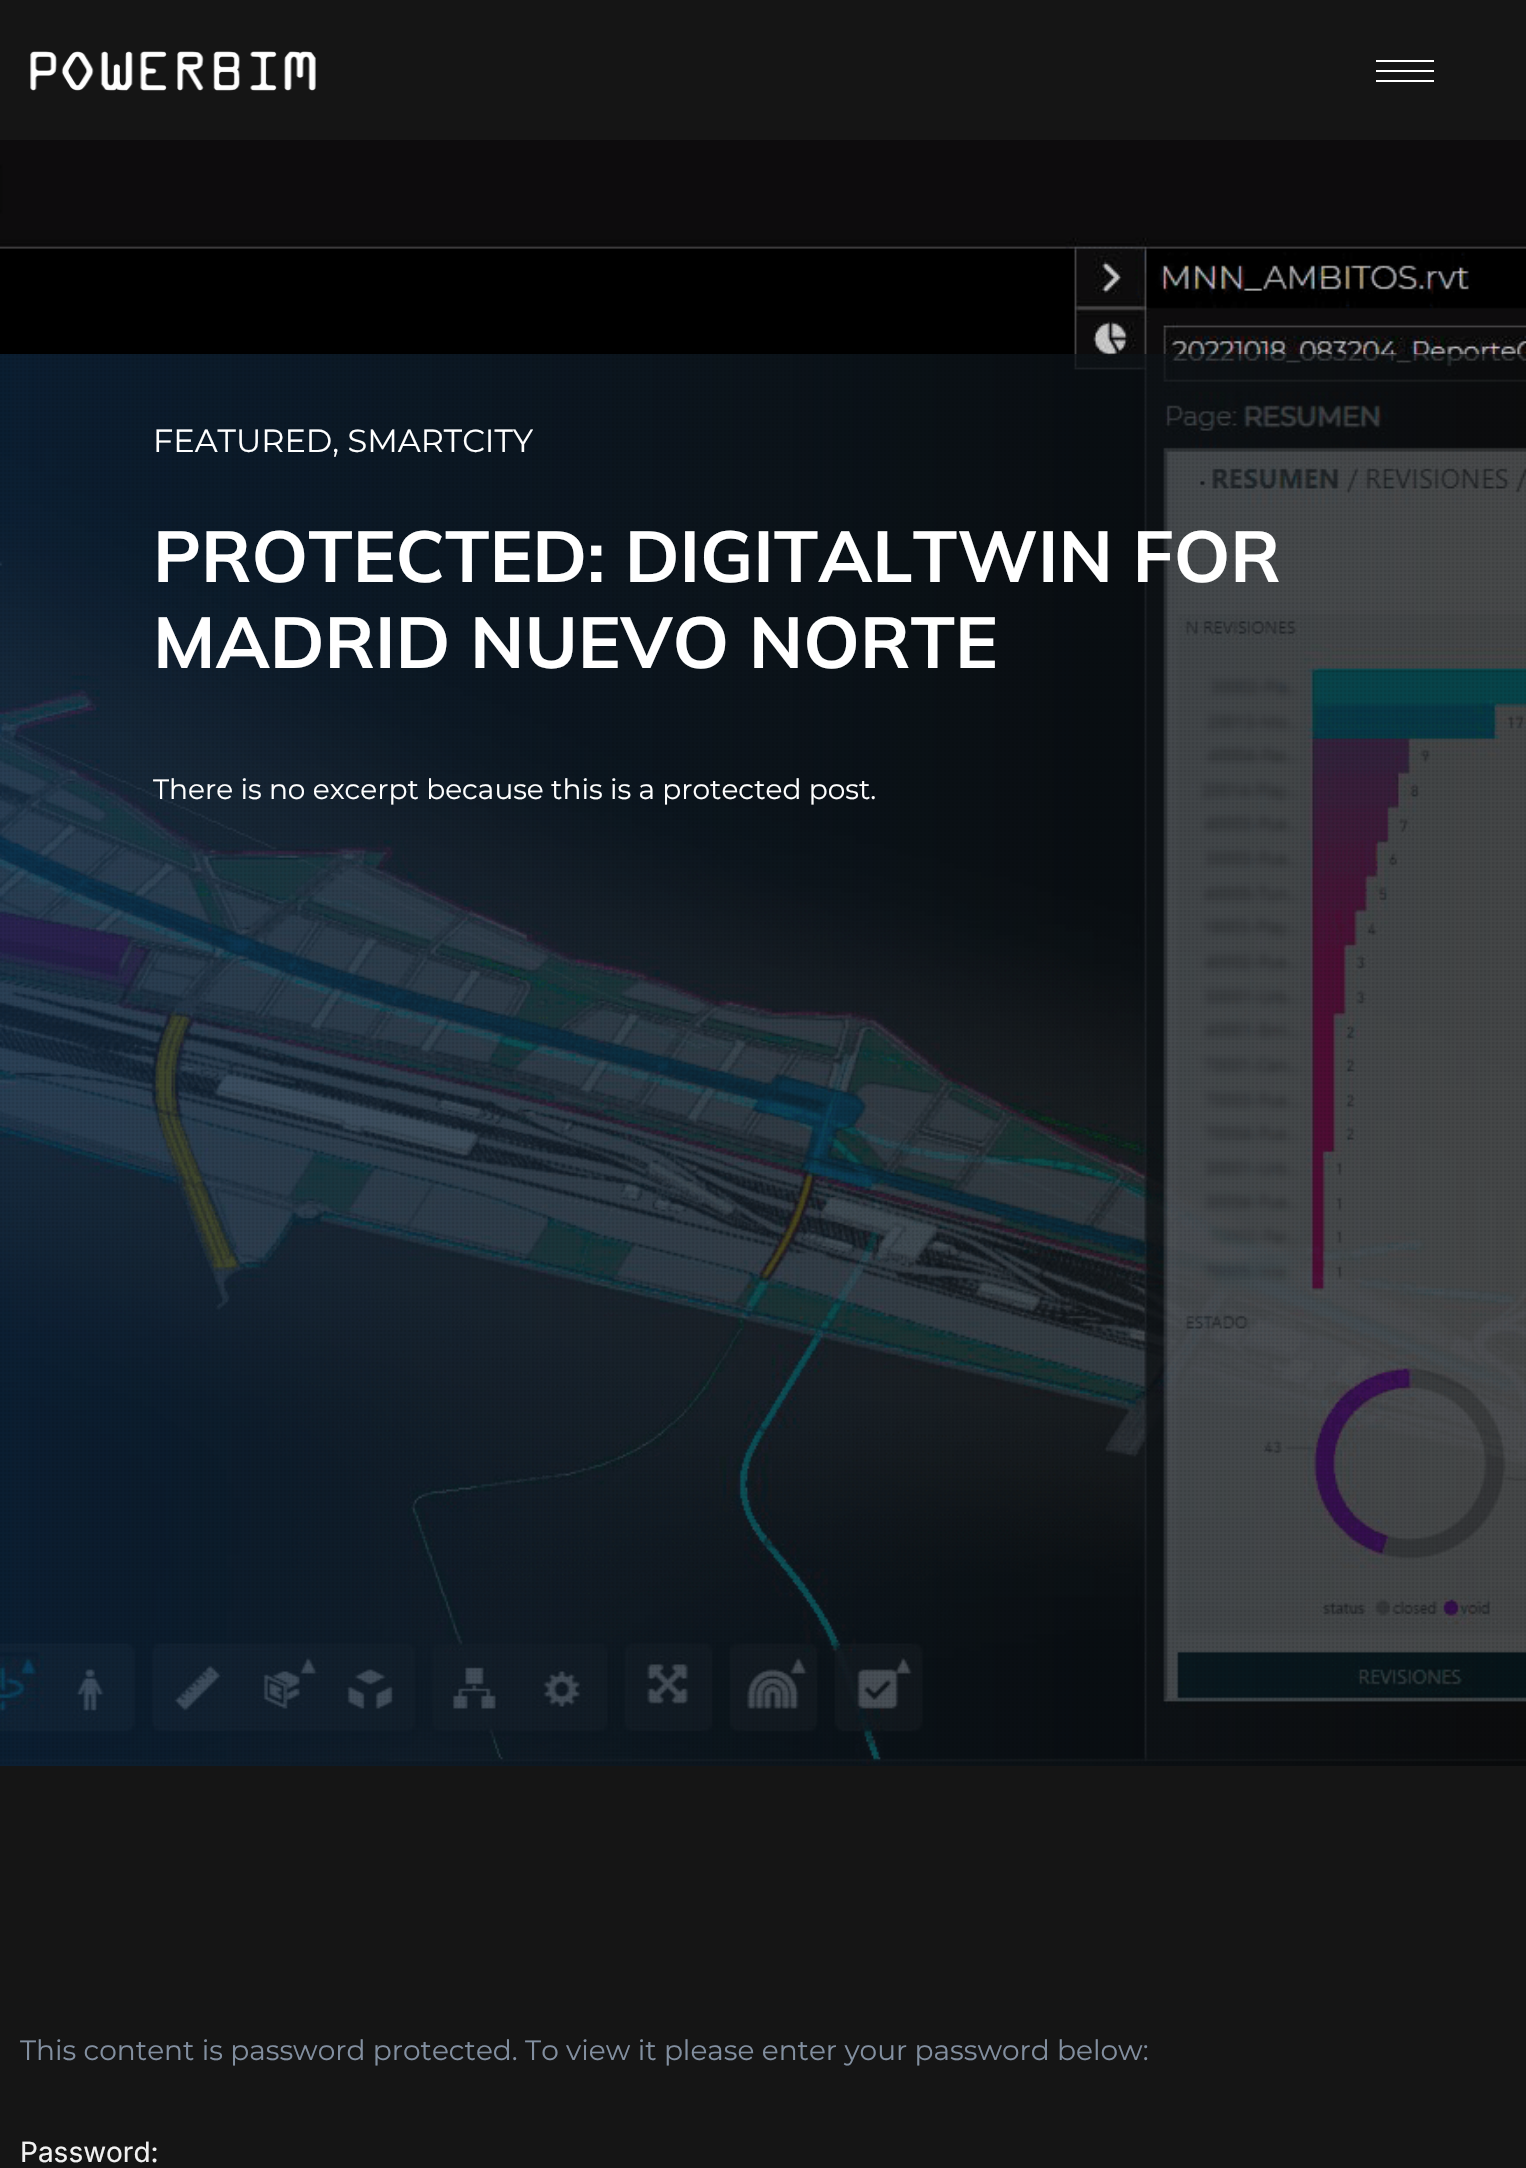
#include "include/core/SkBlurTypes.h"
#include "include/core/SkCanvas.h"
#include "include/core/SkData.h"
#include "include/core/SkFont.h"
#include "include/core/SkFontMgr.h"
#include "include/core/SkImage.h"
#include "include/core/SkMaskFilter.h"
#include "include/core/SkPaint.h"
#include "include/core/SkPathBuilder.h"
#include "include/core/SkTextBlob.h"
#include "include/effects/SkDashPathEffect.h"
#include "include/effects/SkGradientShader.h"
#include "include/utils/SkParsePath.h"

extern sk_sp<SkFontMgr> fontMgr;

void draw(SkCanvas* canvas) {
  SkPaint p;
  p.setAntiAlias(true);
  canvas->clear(SkColorSetRGB(21, 21, 21));
  canvas->drawImageRect(SkImages::DeferredFromEncodedData(SkData::MakeFromFileName("images/1.png")), SkRect::MakeLTRB(30, 51, 316, 91), SkSamplingOptions());
  p.setColor(SK_ColorWHITE);
  canvas->drawRect(SkRect::MakeLTRB(1376, 60, 1434, 62), p);
  canvas->drawRect(SkRect::MakeLTRB(1376, 70, 1434, 72), p);
  canvas->drawRect(SkRect::MakeLTRB(1376, 80, 1434, 82), p);
  canvas->drawImageRect(SkImages::DeferredFromEncodedData(SkData::MakeFromFileName("images/2.png")), SkRect::MakeLTRB(0, 140, 1526, 1766), SkSamplingOptions());
  p.setColor(SkColorSetARGB(77, 0, 0, 0));
  canvas->drawRect(SkRect::MakeLTRB(0, 354, 1526, 1765), p);
  {
    const SkColor colors[] = {SkColorSetARGB(102, 51, 153, 255), SkColorSetARGB(26, 115, 153, 176)};
    const float stops[] = {0, 1};
    const SkPoint ends[] = {{0, 1060}, {1526, 1060}};
    p.setShader(SkGradientShader::MakeLinear(ends, colors, stops, 2, SkTileMode::kClamp));
    p.setAlpha(255);
  }
  canvas->drawRect(SkRect::MakeLTRB(0, 354, 1526, 1766), p);
  p.setShader(nullptr);
  p.setColor(SkColorSetARGB(133, 0, 0, 0));
  canvas->drawRect(SkRect::MakeLTRB(0, 354, 1526, 1766), p);
  canvas->drawImageRect(SkImages::DeferredFromEncodedData(SkData::MakeFromFileName("images/3.png")), SkRect::MakeLTRB(0, 354, 1526, 1764), SkSamplingOptions());
  SkFont font1(fontMgr->matchFamilyStyle("Montserrat", SkFontStyle::Normal()), 32);
  font1.setSubpixel(true);
  p.setColor(SK_ColorWHITE);
  canvas->drawString("FEATURED, SMARTCITY", 153, 452, font1, p);
  SkFont font2(fontMgr->matchFamilyStyle("Mulish", SkFontStyle::Bold()), 72);
  font2.setSubpixel(true);
  canvas->drawString("PROTECTED: DIGITALTWIN FOR", 153, 582, font2, p);
  canvas->drawString("MADRID NUEVO NORTE", 153, 668, font2, p);
  SkFont font3(fontMgr->matchFamilyStyle("Montserrat", SkFontStyle::Normal()), 28);
  font3.setSubpixel(true);
  canvas->drawString("There is no excerpt because this is a protected post.", 153, 799, font3, p);
  p.setColor(SkColorSetRGB(130, 143, 160));
  canvas->drawString("This content is password protected. To view it please enter your password below:", 20, 2060, font3, p);
  SkFont font4(fontMgr->matchFamilyStyle("Inter", SkFontStyle::Normal()), 28);
  font4.setSubpixel(true);
  p.setColor(SkColorSetRGB(241, 241, 241));
  canvas->drawString("Password:", 20, 2162, font4, p);
}
